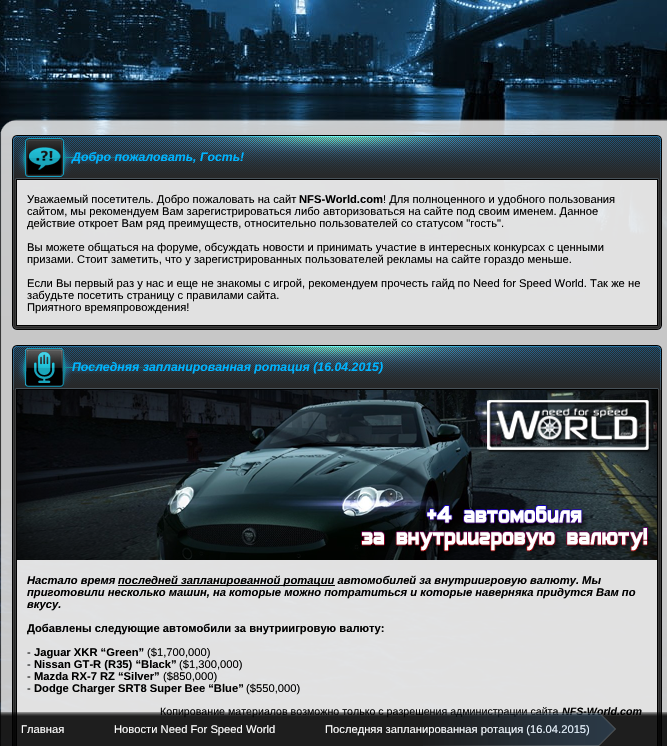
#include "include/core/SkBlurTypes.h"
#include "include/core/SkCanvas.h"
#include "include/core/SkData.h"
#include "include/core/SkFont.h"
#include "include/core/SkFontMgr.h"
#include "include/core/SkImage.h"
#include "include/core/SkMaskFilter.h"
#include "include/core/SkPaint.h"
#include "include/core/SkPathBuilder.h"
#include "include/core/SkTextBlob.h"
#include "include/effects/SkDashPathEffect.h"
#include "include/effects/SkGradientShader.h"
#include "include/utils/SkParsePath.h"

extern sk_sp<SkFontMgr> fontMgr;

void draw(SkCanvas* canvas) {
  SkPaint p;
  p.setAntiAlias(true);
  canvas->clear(SK_ColorBLACK);
  canvas->drawImageRect(SkImages::DeferredFromEncodedData(SkData::MakeFromFileName("images/1.png")), SkRect::MakeLTRB(0, 489, 667, 746), SkSamplingOptions());
  canvas->drawImageRect(SkImages::DeferredFromEncodedData(SkData::MakeFromFileName("images/2.png")), SkRect::MakeLTRB(0, 0, 667, 316), SkSamplingOptions());
  canvas->drawImageRect(SkImages::DeferredFromEncodedData(SkData::MakeFromFileName("images/3.png")), SkRect::MakeLTRB(0, 119, 667, 132), SkSamplingOptions());
  canvas->drawImageRect(SkImages::DeferredFromEncodedData(SkData::MakeFromFileName("images/4.png")), SkRect::MakeLTRB(0, 132, 667, 746), SkSamplingOptions());
  canvas->drawImageRect(SkImages::DeferredFromEncodedData(SkData::MakeFromFileName("images/5.png")), SkRect::MakeLTRB(12, 180, 662, 325), SkSamplingOptions());
  canvas->drawImageRect(SkImages::DeferredFromEncodedData(SkData::MakeFromFileName("images/6.png")), SkRect::MakeLTRB(12, 135, 662, 180), SkSamplingOptions());
  canvas->drawImageRect(SkImages::DeferredFromEncodedData(SkData::MakeFromFileName("images/7.png")), SkRect::MakeLTRB(25, 138, 64, 177), SkSamplingOptions());
  canvas->drawImageRect(SkImages::DeferredFromEncodedData(SkData::MakeFromFileName("images/8.png")), SkRect::MakeLTRB(12, 325, 662, 330), SkSamplingOptions());
  canvas->drawImageRect(SkImages::DeferredFromEncodedData(SkData::MakeFromFileName("images/9.png")), SkRect::MakeLTRB(12, 390, 662, 746), SkSamplingOptions());
  canvas->drawImageRect(SkImages::DeferredFromEncodedData(SkData::MakeFromFileName("images/6.png")), SkRect::MakeLTRB(12, 345, 662, 390), SkSamplingOptions());
  canvas->drawImageRect(SkImages::DeferredFromEncodedData(SkData::MakeFromFileName("images/10.png")), SkRect::MakeLTRB(25, 348, 64, 387), SkSamplingOptions());
  canvas->drawImageRect(SkImages::DeferredFromEncodedData(SkData::MakeFromFileName("images/11.png")), SkRect::MakeLTRB(17, 390, 657, 560), SkSamplingOptions());
  p.setColor(SK_ColorBLACK);
  canvas->drawRect(SkRect::MakeLTRB(118, 585, 335, 586), p);
  SkFont font1(fontMgr->matchFamilyStyle("Liberation Sans", SkFontStyle::BoldItalic()), 12.3f);
  font1.setSubpixel(true);
  p.setColor(SkColorSetRGB(0, 180, 255));
  canvas->drawString("Добро пожаловать, Гость!", 72, 161, font1, p);
  SkFont font2(fontMgr->matchFamilyStyle("Liberation Sans", SkFontStyle::Normal()), 11.2f);
  font2.setSubpixel(true);
  p.setColor(SK_ColorBLACK);
  canvas->drawString("Уважаемый посетитель. Добро пожаловать на сайт", 27, 203, font2, p);
  SkFont font3(fontMgr->matchFamilyStyle("Liberation Sans", SkFontStyle::Bold()), 11.2f);
  font3.setSubpixel(true);
  canvas->drawString("NFS-World.com", 299, 203, font3, p);
  canvas->drawString("! Для полноценного и удобного пользования", 383, 203, font2, p);
  canvas->drawString("сайтом, мы рекомендуем Вам зарегистрироваться либо авторизоваться на сайте под своим именем. Данное", 27, 215, font2, p);
  canvas->drawString("действие откроет Вам ряд преимуществ, относительно пользователей со статусом \"гость\".", 27, 227, font2, p);
  canvas->drawString("Вы можете общаться на форуме, обсуждать новости и принимать участие в интересных конкурсах с ценными", 27, 251, font2, p);
  canvas->drawString("призами. Стоит заметить, что у зарегистрированных пользователей рекламы на сайте гораздо меньше.", 27, 263, font2, p);
  canvas->drawString("Если Вы первый раз у нас и еще не знакомы с игрой, рекомендуем прочесть гайд по Need for Speed World. Так же не", 27, 287, font2, p);
  canvas->drawString("забудьте посетить страницу с правилами сайта.", 27, 299, font2, p);
  canvas->drawString("Приятного времяпровождения!", 27, 311, font2, p);
  p.setColor(SkColorSetRGB(0, 180, 255));
  canvas->drawString("Последняя запланированная ротация (16.04.2015)", 72, 371, font1, p);
  SkFont font4(fontMgr->matchFamilyStyle("Liberation Sans", SkFontStyle::BoldItalic()), 11.2f);
  font4.setSubpixel(true);
  p.setColor(SK_ColorBLACK);
  canvas->drawString("Настало время", 27, 584, font4, p);
  canvas->drawString("последней запланированной ротации автомобилей за внутриигровую валюту. Мы", 118, 584, font4, p);
  canvas->drawString("приготовили несколько машин, на которые можно потратиться и которые наверняка придутся Вам по", 27, 596, font4, p);
  canvas->drawString("вкусу.", 27, 608, font4, p);
  canvas->drawString("Добавлены следующие автомобили за внутриигровую валюту:", 27, 632, font3, p);
  canvas->drawString("-", 27, 656, font2, p);
  canvas->drawString("Jaguar XKR “Green”", 34, 656, font3, p);
  canvas->drawString("($1,700,000)", 147, 656, font2, p);
  canvas->drawString("-", 27, 668, font2, p);
  canvas->drawString("Nissan GT-R (R35) “Black”", 34, 668, font3, p);
  canvas->drawString("($1,300,000)", 179, 668, font2, p);
  canvas->drawString("-", 27, 680, font2, p);
  canvas->drawString("Mazda RX-7 RZ “Silver”", 34, 680, font3, p);
  canvas->drawString("($850,000)", 163, 680, font2, p);
  canvas->drawString("-", 27, 692, font2, p);
  canvas->drawString("Dodge Charger SRT8 Super Bee “Blue”", 34, 692, font3, p);
  canvas->drawString("($550,000)", 246, 692, font2, p);
  SkFont font5(fontMgr->matchFamilyStyle("Liberation Sans", SkFontStyle::Normal()), 10.65f);
  font5.setSubpixel(true);
  canvas->drawString("Копирование материалов возможно только с разрешения администрации сайта", 160, 715, font5, p);
  SkFont font6(fontMgr->matchFamilyStyle("Liberation Sans", SkFontStyle::BoldItalic()), 10.65f);
  font6.setSubpixel(true);
  canvas->drawString("NFS-World.com", 562, 715, font6, p);
  canvas->drawImageRect(SkImages::DeferredFromEncodedData(SkData::MakeFromFileName("images/12.png")), SkRect::MakeLTRB(0, 712, 667, 746), SkSamplingOptions());
  p.setColor(SK_ColorWHITE);
  canvas->drawString("Новости Need For Speed World", 114, 733, font2, p);
  canvas->drawString("Главная", 21, 733, font2, p);
  canvas->drawString("Последняя запланированная ротация (16.04.2015)", 325, 733, font2, p);
  canvas->drawImageRect(SkImages::DeferredFromEncodedData(SkData::MakeFromFileName("images/13.png")), SkRect::MakeLTRB(423, 713, 616, 746), SkSamplingOptions());
}
